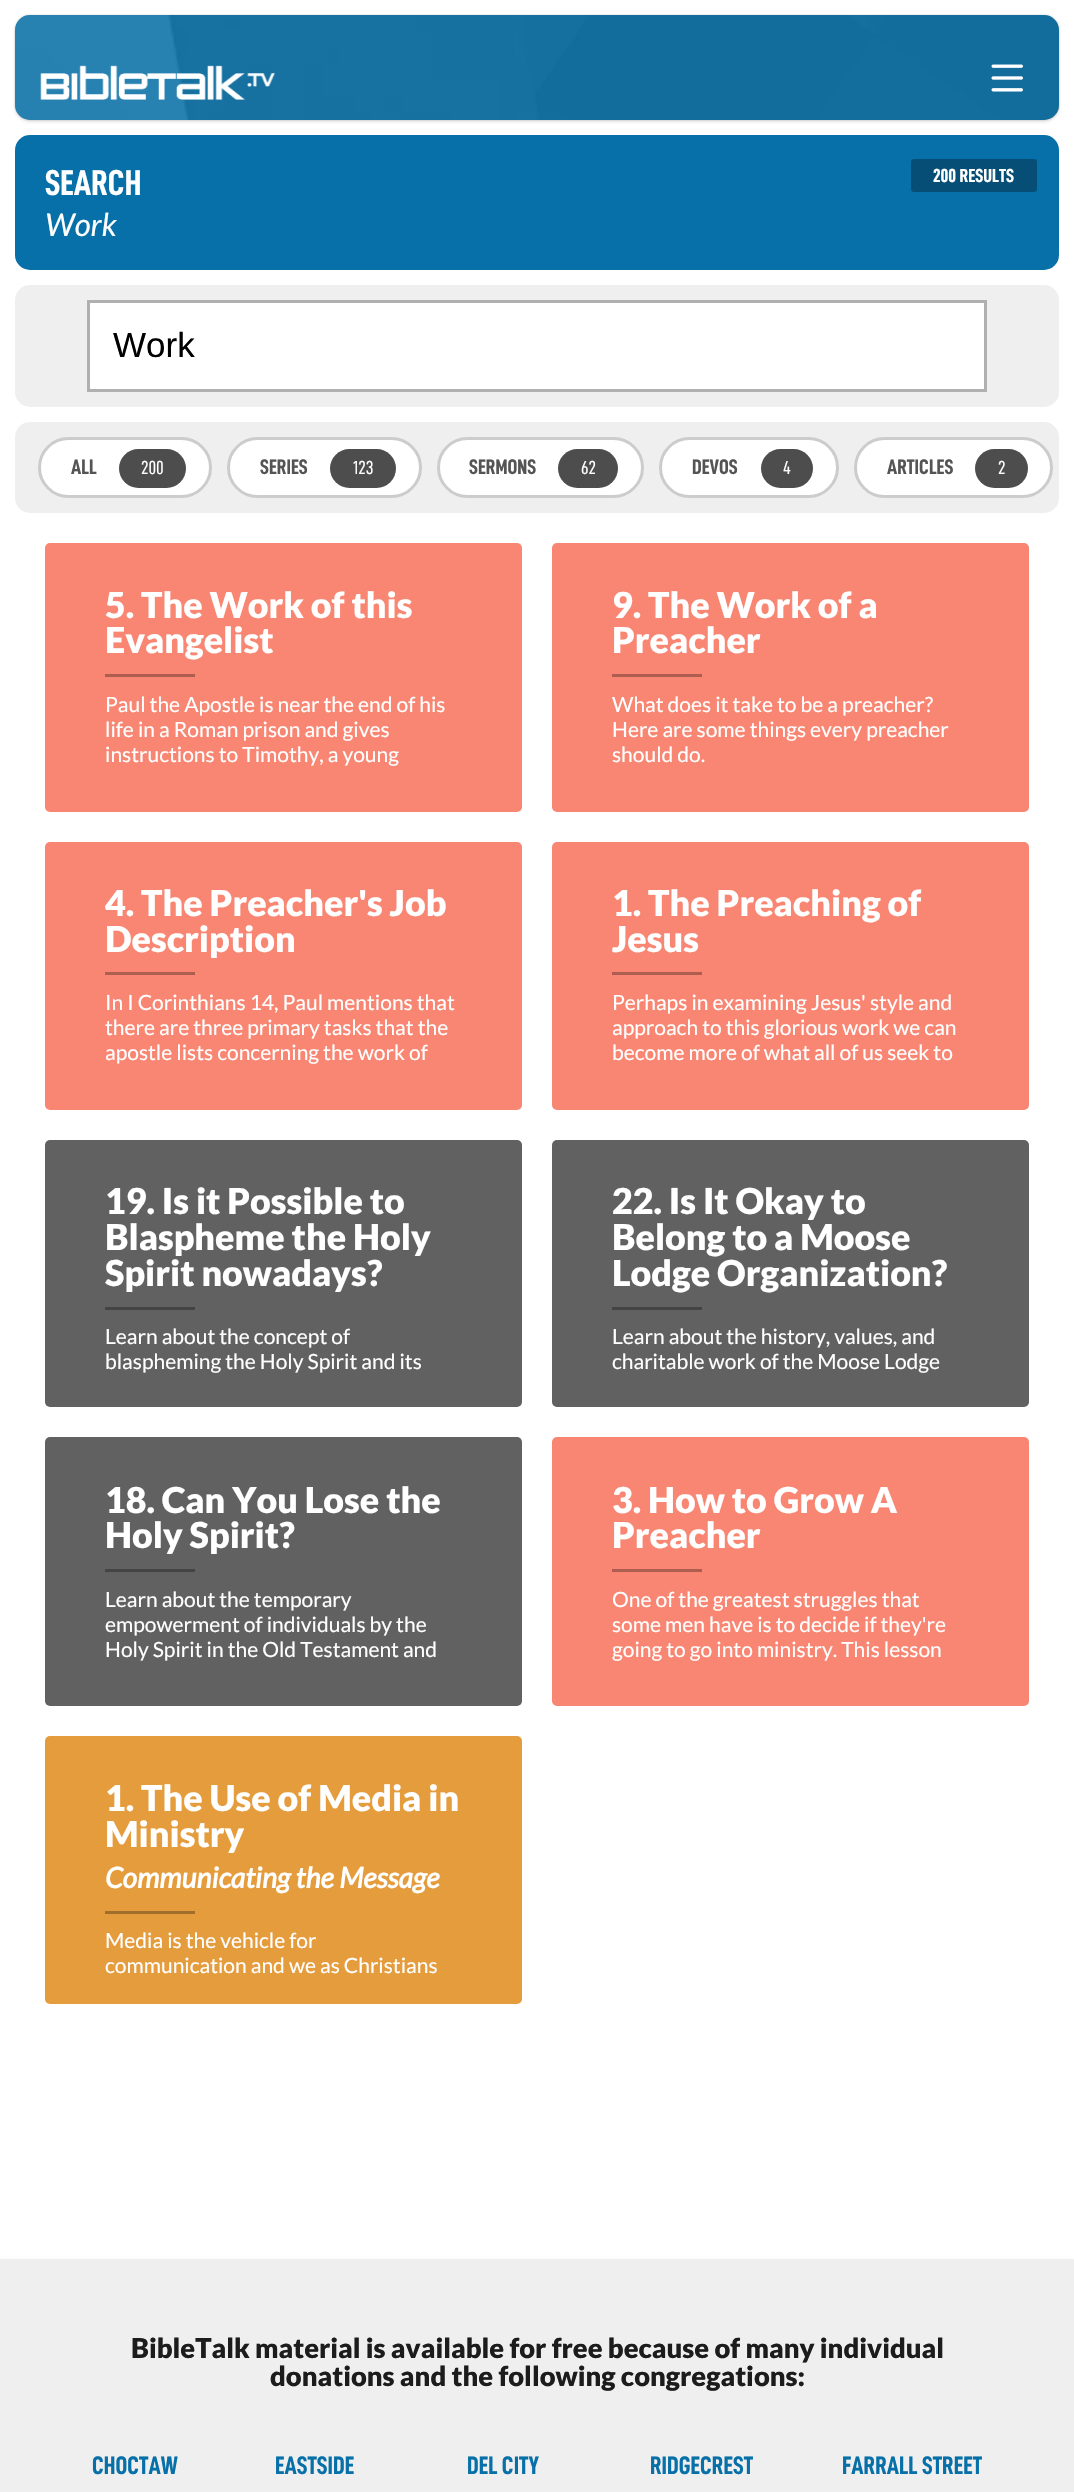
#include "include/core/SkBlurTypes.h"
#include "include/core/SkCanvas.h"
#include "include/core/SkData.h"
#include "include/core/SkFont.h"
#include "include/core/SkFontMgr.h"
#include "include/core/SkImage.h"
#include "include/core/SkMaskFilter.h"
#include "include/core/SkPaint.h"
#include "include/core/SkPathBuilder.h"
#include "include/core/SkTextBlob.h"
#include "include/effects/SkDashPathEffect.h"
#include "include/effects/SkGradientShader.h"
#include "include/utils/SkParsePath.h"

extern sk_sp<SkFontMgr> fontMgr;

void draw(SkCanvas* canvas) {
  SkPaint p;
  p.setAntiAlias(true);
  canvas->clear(SK_ColorWHITE);
  p.setColor(SkColorSetARGB(51, 0, 0, 0));
  p.setMaskFilter(SkMaskFilter::MakeBlur(kNormal_SkBlurStyle, 1));
  canvas->drawRoundRect(SkRect::MakeLTRB(15, 15, 1059, 120), 15, 15, p);
  p.setMaskFilter(nullptr);
  p.setColor(SkColorSetARGB(26, 0, 0, 0));
  p.setMaskFilter(SkMaskFilter::MakeBlur(kNormal_SkBlurStyle, 1.5f));
  canvas->drawRoundRect(SkRect::MakeLTRB(15, 17, 1059, 122), 15, 15, p);
  p.setMaskFilter(nullptr);
  p.setColor(SkColorSetRGB(8, 112, 168));
  canvas->drawRoundRect(SkRect::MakeLTRB(15, 15, 1059, 120), 15, 15, p);
  canvas->drawImageRect(SkImages::DeferredFromEncodedData(SkData::MakeFromFileName("images/1.png")), SkRect::MakeLTRB(15, 15, 1059, 120), SkSamplingOptions());
  canvas->drawImageRect(SkImages::DeferredFromEncodedData(SkData::MakeFromFileName("images/2.png")), SkRect::MakeLTRB(40, 65, 275, 100), SkSamplingOptions());
  canvas->drawImageRect(SkImages::DeferredFromEncodedData(SkData::MakeFromFileName("images/3.png")), SkRect::MakeLTRB(991, 64, 1023, 92), SkSamplingOptions());
  canvas->drawRoundRect(SkRect::MakeLTRB(15, 135, 1059, 270), 15, 15, p);
  p.setColor(SkColorSetRGB(6, 78, 118));
  canvas->drawRoundRect(SkRect::MakeLTRB(911, 159, 1037, 192), 3, 3, p);
  p.setColor(SkColorSetRGB(239, 239, 239));
  canvas->drawRoundRect(SkRect::MakeLTRB(15, 285, 1059, 407), 15, 15, p);
  p.setColor(SK_ColorWHITE);
  canvas->drawRect(SkRect::MakeLTRB(88.5f, 301.5f, 985.5f, 390.5f), p);
  p.setStyle(SkPaint::kStroke_Style);
  p.setStrokeWidth(3);
  p.setColor(SkColorSetRGB(176, 176, 176));
  canvas->drawRect(SkRect::MakeLTRB(88.5f, 301.5f, 985.5f, 390.5f), p);
  p.setStyle(SkPaint::kFill_Style);
  p.setColor(SkColorSetRGB(239, 239, 239));
  canvas->drawRoundRect(SkRect::MakeLTRB(15, 422, 1059, 513), 15, 15, p);
  p.setColor(SK_ColorWHITE);
  canvas->drawRoundRect(SkRect::MakeLTRB(38, 437, 212, 498), 30.5f, 30.5f, p);
  p.setStyle(SkPaint::kStroke_Style);
  p.setColor(SkColorSetARGB(51, 0, 0, 0));
  canvas->drawRoundRect(SkRect::MakeLTRB(39.5f, 438.5f, 210.5f, 496.5f), 29, 29, p);
  p.setStyle(SkPaint::kFill_Style);
  p.setColor(SkColorSetRGB(77, 77, 77));
  canvas->drawRoundRect(SkRect::MakeLTRB(119, 449, 186, 488), 19.5f, 19.5f, p);
  p.setColor(SK_ColorWHITE);
  canvas->drawRoundRect(SkRect::MakeLTRB(227, 437, 422, 498), 30.5f, 30.5f, p);
  p.setStyle(SkPaint::kStroke_Style);
  p.setColor(SkColorSetARGB(51, 0, 0, 0));
  canvas->drawRoundRect(SkRect::MakeLTRB(228.5f, 438.5f, 420.5f, 496.5f), 29, 29, p);
  p.setStyle(SkPaint::kFill_Style);
  p.setColor(SkColorSetRGB(77, 77, 77));
  canvas->drawRoundRect(SkRect::MakeLTRB(330, 449, 396, 488), 19.5f, 19.5f, p);
  p.setColor(SK_ColorWHITE);
  canvas->drawRoundRect(SkRect::MakeLTRB(437, 437, 644, 498), 30.5f, 30.5f, p);
  p.setStyle(SkPaint::kStroke_Style);
  p.setColor(SkColorSetARGB(51, 0, 0, 0));
  canvas->drawRoundRect(SkRect::MakeLTRB(438.5f, 438.5f, 642.5f, 496.5f), 29, 29, p);
  p.setStyle(SkPaint::kFill_Style);
  p.setColor(SkColorSetRGB(77, 77, 77));
  canvas->drawRoundRect(SkRect::MakeLTRB(558, 449, 618, 488), 19.5f, 19.5f, p);
  p.setColor(SK_ColorWHITE);
  canvas->drawRoundRect(SkRect::MakeLTRB(659, 437, 839, 498), 30.5f, 30.5f, p);
  p.setStyle(SkPaint::kStroke_Style);
  p.setColor(SkColorSetARGB(51, 0, 0, 0));
  canvas->drawRoundRect(SkRect::MakeLTRB(660.5f, 438.5f, 837.5f, 496.5f), 29, 29, p);
  p.setStyle(SkPaint::kFill_Style);
  p.setColor(SkColorSetRGB(77, 77, 77));
  canvas->drawRoundRect(SkRect::MakeLTRB(761, 449, 813, 488), 19.5f, 19.5f, p);
  p.setColor(SK_ColorWHITE);
  canvas->drawRoundRect(SkRect::MakeLTRB(854, 437, 1053, 498), 30.5f, 30.5f, p);
  p.setStyle(SkPaint::kStroke_Style);
  p.setColor(SkColorSetARGB(51, 0, 0, 0));
  canvas->drawRoundRect(SkRect::MakeLTRB(855.5f, 438.5f, 1051.5f, 496.5f), 29, 29, p);
  p.setStyle(SkPaint::kFill_Style);
  p.setColor(SkColorSetRGB(77, 77, 77));
  canvas->drawRoundRect(SkRect::MakeLTRB(975, 449, 1028, 488), 19.5f, 19.5f, p);
  p.setColor(SkColorSetRGB(248, 134, 114));
  canvas->drawRoundRect(SkRect::MakeLTRB(45, 543, 522, 812), 5, 5, p);
  p.setColor(SkColorSetRGB(174, 94, 80));
  canvas->drawRect(SkRect::MakeLTRB(105, 674, 195, 677), p);
  p.setColor(SkColorSetRGB(248, 134, 114));
  canvas->drawRoundRect(SkRect::MakeLTRB(552, 543, 1029, 812), 5, 5, p);
  p.setColor(SkColorSetRGB(174, 94, 80));
  canvas->drawRect(SkRect::MakeLTRB(612, 674, 702, 677), p);
  p.setColor(SkColorSetRGB(248, 134, 114));
  canvas->drawRoundRect(SkRect::MakeLTRB(45, 842, 522, 1110), 5, 5, p);
  p.setColor(SkColorSetRGB(174, 94, 80));
  canvas->drawRect(SkRect::MakeLTRB(105, 972, 195, 975), p);
  p.setColor(SkColorSetRGB(248, 134, 114));
  canvas->drawRoundRect(SkRect::MakeLTRB(552, 842, 1029, 1110), 5, 5, p);
  p.setColor(SkColorSetRGB(174, 94, 80));
  canvas->drawRect(SkRect::MakeLTRB(612, 972, 702, 975), p);
  p.setColor(SkColorSetRGB(97, 97, 97));
  canvas->drawRoundRect(SkRect::MakeLTRB(45, 1140, 522, 1407), 5, 5, p);
  p.setColor(SkColorSetRGB(68, 68, 68));
  canvas->drawRect(SkRect::MakeLTRB(105, 1307, 195, 1310), p);
  p.setColor(SkColorSetRGB(97, 97, 97));
  canvas->drawRoundRect(SkRect::MakeLTRB(552, 1140, 1029, 1407), 5, 5, p);
  p.setColor(SkColorSetRGB(68, 68, 68));
  canvas->drawRect(SkRect::MakeLTRB(612, 1307, 702, 1310), p);
  p.setColor(SkColorSetRGB(97, 97, 97));
  canvas->drawRoundRect(SkRect::MakeLTRB(45, 1437, 522, 1706), 5, 5, p);
  p.setColor(SkColorSetRGB(68, 68, 68));
  canvas->drawRect(SkRect::MakeLTRB(105, 1569, 195, 1572), p);
  p.setColor(SkColorSetRGB(248, 134, 114));
  canvas->drawRoundRect(SkRect::MakeLTRB(552, 1437, 1029, 1706), 5, 5, p);
  p.setColor(SkColorSetRGB(174, 94, 80));
  canvas->drawRect(SkRect::MakeLTRB(612, 1569, 702, 1572), p);
  p.setColor(SkColorSetRGB(229, 156, 61));
  canvas->drawRoundRect(SkRect::MakeLTRB(45, 1736, 522, 2004), 5, 5, p);
  p.setColor(SkColorSetRGB(160, 109, 43));
  canvas->drawRect(SkRect::MakeLTRB(105, 1911, 195, 1914), p);
  p.setColor(SkColorSetRGB(204, 204, 204));
  p.setMaskFilter(SkMaskFilter::MakeBlur(kNormal_SkBlurStyle, 1.5f));
  canvas->drawRect(SkRect::MakeLTRB(0, 2261, 1074, 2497), p);
  p.setMaskFilter(nullptr);
  p.setColor(SkColorSetRGB(239, 239, 239));
  canvas->drawRect(SkRect::MakeLTRB(0, 2259, 1074, 2492), p);
  SkFont font1(fontMgr->matchFamilyStyle("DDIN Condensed", SkFontStyle::Bold()), 36);
  font1.setSubpixel(true);
  p.setColor(SK_ColorWHITE);
  canvas->drawString("SEARCH", 45, 195, font1, p);
  SkFont font2(fontMgr->matchFamilyStyle("DDIN Condensed", SkFontStyle::Bold()), 19);
  font2.setSubpixel(true);
  canvas->drawString("200 RESULTS", 933, 182, font2, p);
  SkFont font3(fontMgr->matchFamilyStyle("Lato", SkFontStyle::Italic()), 31.5f);
  font3.setSubpixel(true);
  canvas->drawString("Work", 45, 236, font3, p);
  SkFont font4(fontMgr->matchFamilyStyle("Liberation Sans", SkFontStyle::Normal()), 35);
  font4.setSubpixel(true);
  p.setColor(SK_ColorBLACK);
  canvas->drawString("Work", 113, 357, font4, p);
  SkFont font5(fontMgr->matchFamilyStyle("DDIN Condensed", SkFontStyle::Bold()), 21);
  font5.setSubpixel(true);
  p.setColor(SkColorSetRGB(84, 84, 84));
  canvas->drawString("ALL", 71, 474, font5, p);
  SkFont font6(fontMgr->matchFamilyStyle("DDIN Condensed", SkFontStyle::Normal()), 19);
  font6.setSubpixel(true);
  p.setColor(SK_ColorWHITE);
  canvas->drawString("200", 141, 474, font6, p);
  p.setColor(SkColorSetRGB(84, 84, 84));
  canvas->drawString("SERIES", 260, 474, font5, p);
  p.setColor(SK_ColorWHITE);
  canvas->drawString("123", 353, 474, font6, p);
  p.setColor(SkColorSetRGB(84, 84, 84));
  canvas->drawString("SERMONS", 469, 474, font5, p);
  p.setColor(SK_ColorWHITE);
  canvas->drawString("62", 581, 474, font6, p);
  p.setColor(SkColorSetRGB(84, 84, 84));
  canvas->drawString("DEVOS", 692, 474, font5, p);
  p.setColor(SK_ColorWHITE);
  canvas->drawString("4", 783, 474, font6, p);
  p.setColor(SkColorSetRGB(84, 84, 84));
  canvas->drawString("ARTICLES", 887, 474, font5, p);
  p.setColor(SK_ColorWHITE);
  canvas->drawString("2", 998, 474, font6, p);
  SkFont font7(fontMgr->matchFamilyStyle("Lato", SkFontStyle(900, SkFontStyle::kNormal_Width, SkFontStyle::kUpright_Slant)), 35.75f);
  font7.setSubpixel(true);
  canvas->drawString("5. The Work of this", 105, 618, font7, p);
  canvas->drawString("Evangelist", 105, 653, font7, p);
  SkFont font8(fontMgr->matchFamilyStyle("Lato", SkFontStyle::Normal()), 21);
  font8.setSubpixel(true);
  canvas->drawString("Paul the Apostle is near the end of his", 105, 712, font8, p);
  canvas->drawString("life in a Roman prison and gives", 105, 737, font8, p);
  canvas->drawString("instructions to Timothy, a young", 105, 762, font8, p);
  canvas->drawString("9. The Work of a", 612, 618, font7, p);
  canvas->drawString("Preacher", 612, 653, font7, p);
  canvas->drawString("What does it take to be a preacher?", 612, 712, font8, p);
  canvas->drawString("Here are some things every preacher", 612, 737, font8, p);
  canvas->drawString("should do.", 612, 762, font8, p);
  canvas->drawString("4. The Preacher's Job", 105, 916, font7, p);
  canvas->drawString("Description", 105, 952, font7, p);
  canvas->drawString("In I Corinthians 14, Paul mentions that", 105, 1010, font8, p);
  canvas->drawString("there are three primary tasks that the", 105, 1035, font8, p);
  canvas->drawString("apostle lists concerning the work of", 105, 1060, font8, p);
  canvas->drawString("1. The Preaching of", 612, 916, font7, p);
  canvas->drawString("Jesus", 612, 952, font7, p);
  canvas->drawString("Perhaps in examining Jesus' style and", 612, 1010, font8, p);
  canvas->drawString("approach to this glorious work we can", 612, 1035, font8, p);
  canvas->drawString("become more of what all of us seek to", 612, 1060, font8, p);
  canvas->drawString("19. Is it Possible to", 105, 1214, font7, p);
  canvas->drawString("Blaspheme the Holy", 105, 1250, font7, p);
  canvas->drawString("Spirit nowadays?", 105, 1286, font7, p);
  canvas->drawString("Learn about the concept of", 105, 1344, font8, p);
  canvas->drawString("blaspheming the Holy Spirit and its", 105, 1369, font8, p);
  canvas->drawString("22. Is It Okay to", 612, 1214, font7, p);
  canvas->drawString("Belong to a Moose", 612, 1250, font7, p);
  canvas->drawString("Lodge Organization?", 612, 1286, font7, p);
  canvas->drawString("Learn about the history, values, and", 612, 1344, font8, p);
  canvas->drawString("charitable work of the Moose Lodge", 612, 1369, font8, p);
  canvas->drawString("18. Can You Lose the", 105, 1513, font7, p);
  canvas->drawString("Holy Spirit?", 105, 1548, font7, p);
  canvas->drawString("Learn about the temporary", 105, 1607, font8, p);
  canvas->drawString("empowerment of individuals by the", 105, 1632, font8, p);
  canvas->drawString("Holy Spirit in the Old Testament and", 105, 1657, font8, p);
  canvas->drawString("3. How to Grow A", 612, 1513, font7, p);
  canvas->drawString("Preacher", 612, 1548, font7, p);
  canvas->drawString("One of the greatest struggles that", 612, 1607, font8, p);
  canvas->drawString("some men have is to decide if they're", 612, 1632, font8, p);
  canvas->drawString("going to go into ministry. This lesson", 612, 1657, font8, p);
  canvas->drawString("1. The Use of Media in", 105, 1811, font7, p);
  canvas->drawString("Ministry", 105, 1847, font7, p);
  SkFont font9(fontMgr->matchFamilyStyle("Lato", SkFontStyle::BoldItalic()), 28.5f);
  font9.setSubpixel(true);
  canvas->drawString("Communicating the Message", 105, 1888, font9, p);
  canvas->drawString("Media is the vehicle for", 105, 1948, font8, p);
  canvas->drawString("communication and we as Christians", 105, 1973, font8, p);
  SkFont font10(fontMgr->matchFamilyStyle("Lato", SkFontStyle(900, SkFontStyle::kNormal_Width, SkFontStyle::kUpright_Slant)), 27.3f);
  font10.setSubpixel(true);
  p.setColor(SkColorSetRGB(28, 28, 28));
  canvas->drawString("BibleTalk material is available for free because of many individual", 131, 2358, font10, p);
  canvas->drawString("donations and the following congregations:", 270, 2386, font10, p);
  SkFont font11(fontMgr->matchFamilyStyle("DDIN Condensed", SkFontStyle::Bold()), 25.25f);
  font11.setSubpixel(true);
  p.setColor(SkColorSetRGB(8, 112, 168));
  canvas->drawString("CHOCTAW", 92, 2474, font11, p);
  canvas->drawString("EASTSIDE", 275, 2474, font11, p);
  canvas->drawString("DEL CITY", 467, 2474, font11, p);
  canvas->drawString("RIDGECREST", 650, 2474, font11, p);
  canvas->drawString("FARRALL STREET", 842, 2474, font11, p);
}
